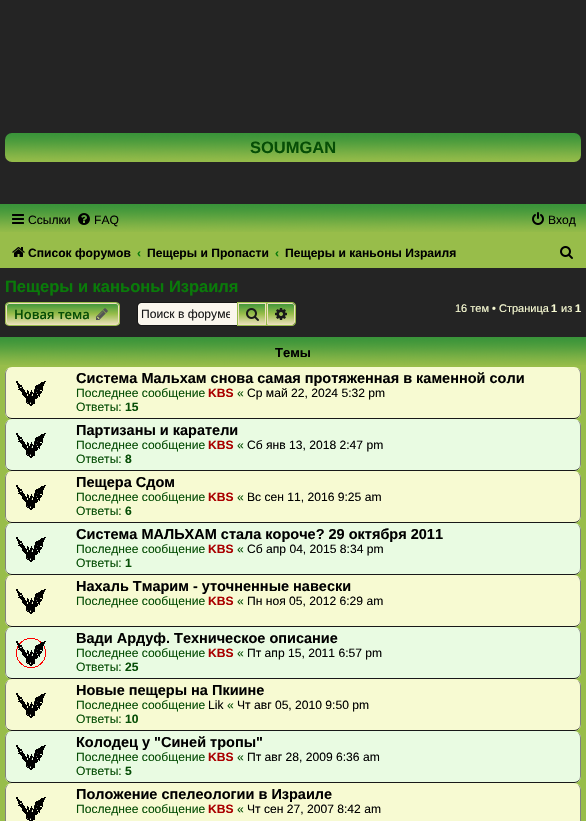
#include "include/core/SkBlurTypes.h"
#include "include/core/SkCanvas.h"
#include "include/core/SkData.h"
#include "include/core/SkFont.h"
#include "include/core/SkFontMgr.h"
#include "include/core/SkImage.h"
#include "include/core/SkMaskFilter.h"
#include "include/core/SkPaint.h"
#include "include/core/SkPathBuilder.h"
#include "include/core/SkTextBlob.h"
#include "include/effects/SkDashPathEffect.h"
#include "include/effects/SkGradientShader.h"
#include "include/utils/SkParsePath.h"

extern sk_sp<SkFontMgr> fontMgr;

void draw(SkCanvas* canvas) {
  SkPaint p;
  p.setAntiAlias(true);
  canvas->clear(SkColorSetRGB(36, 36, 36));
  canvas->drawImageRect(SkImages::DeferredFromEncodedData(SkData::MakeFromFileName("images/1.png")), SkRect::MakeLTRB(5, 133, 581, 162), SkSamplingOptions());
  p.setColor(SkColorSetRGB(152, 189, 74));
  canvas->drawRect(SkRect::MakeLTRB(0, 232, 586, 268), p);
  canvas->drawImageRect(SkImages::DeferredFromEncodedData(SkData::MakeFromFileName("images/2.png")), SkRect::MakeLTRB(0, 204, 586, 232), SkSamplingOptions());
  canvas->drawImageRect(SkImages::DeferredFromEncodedData(SkData::MakeFromFileName("images/3.png")), SkRect::MakeLTRB(12, 214, 24, 224), SkSamplingOptions());
  canvas->drawImageRect(SkImages::DeferredFromEncodedData(SkData::MakeFromFileName("images/4.png")), SkRect::MakeLTRB(78, 213, 90, 225), SkSamplingOptions());
  canvas->drawImageRect(SkImages::DeferredFromEncodedData(SkData::MakeFromFileName("images/5.png")), SkRect::MakeLTRB(532, 212, 544, 225), SkSamplingOptions());
  canvas->drawImageRect(SkImages::DeferredFromEncodedData(SkData::MakeFromFileName("images/6.png")), SkRect::MakeLTRB(12, 247, 25, 257), SkSamplingOptions());
  canvas->drawImageRect(SkImages::DeferredFromEncodedData(SkData::MakeFromFileName("images/7.png")), SkRect::MakeLTRB(560, 246, 573, 259), SkSamplingOptions());
  canvas->save();
  canvas->clipPath(SkPathBuilder().moveTo(9, 302).lineTo(116, 302).cubicTo(118, 302, 120, 304, 120, 306).lineTo(120, 322).cubicTo(120, 324, 118, 326, 116, 326).lineTo(9, 326).cubicTo(7, 326, 5, 324, 5, 322).lineTo(5, 306).cubicTo(5, 304, 7, 302, 9, 302).close().detach(), true);
  {
    const SkColor colors[] = {SkColorSetRGB(58, 148, 58), SkColorSetRGB(152, 189, 74), SkColorSetRGB(238, 224, 191)};
    const float stops[] = {0, 0.5f, 1};
    const SkPoint ends[] = {{63, 303}, {63, 325}};
    p.setShader(SkGradientShader::MakeLinear(ends, colors, stops, 3, SkTileMode::kClamp));
    p.setAlpha(255);
  }
  canvas->drawRect(SkRect::MakeLTRB(5, 303, 120, 325), p);
  canvas->restore();
  p.setStyle(SkPaint::kStroke_Style);
  p.setStrokeWidth(1);
  p.setShader(nullptr);
  p.setColor(SkColorSetRGB(238, 224, 191));
  canvas->drawRoundRect(SkRect::MakeLTRB(6.5f, 303.5f, 118.5f, 324.5f), 2.5f, 2.5f, p);
  p.setColor(SkColorSetRGB(152, 189, 74));
  canvas->drawRoundRect(SkRect::MakeLTRB(5.5f, 302.5f, 119.5f, 325.5f), 3.5f, 3.5f, p);
  canvas->drawImageRect(SkImages::DeferredFromEncodedData(SkData::MakeFromFileName("images/8.png")), SkRect::MakeLTRB(96, 308, 108, 320), SkSamplingOptions());
  p.setStyle(SkPaint::kFill_Style);
  p.setColor(SkColorSetRGB(250, 246, 237));
  canvas->drawPath(SkPathBuilder().moveTo(141, 303).lineTo(237, 303).lineTo(237, 325).lineTo(141, 325).cubicTo(139.5f, 325, 138, 323.5f, 138, 322).lineTo(138, 306).cubicTo(138, 304.5f, 139.5f, 303, 141, 303).close().detach(), p);
  p.setColor(SkColorSetRGB(23, 23, 23));
  canvas->drawPath(SkPathBuilder(SkPathFillType::kEvenOdd).moveTo(141, 302).lineTo(237, 302).lineTo(237, 326).lineTo(141, 326).cubicTo(139, 326, 137, 324, 137, 322).lineTo(137, 306).cubicTo(137, 304, 139, 302, 141, 302).close().moveTo(141, 303).lineTo(237, 303).lineTo(237, 325).lineTo(141, 325).cubicTo(139, 325, 138, 324, 138, 322).lineTo(138, 306).cubicTo(138, 304, 139, 303, 141, 303).close().detach(), p);
  {
    const SkColor colors[] = {SkColorSetRGB(58, 148, 58), SkColorSetRGB(152, 189, 74), SkColorSetRGB(238, 224, 191)};
    const float stops[] = {0, 0.5f, 1};
    const SkPoint ends[] = {{252, 303}, {252, 325}};
    p.setShader(SkGradientShader::MakeLinear(ends, colors, stops, 3, SkTileMode::kClamp));
    p.setAlpha(255);
  }
  canvas->drawRect(SkRect::MakeLTRB(239, 304, 265, 324), p);
  p.setStyle(SkPaint::kStroke_Style);
  p.setShader(nullptr);
  p.setColor(SkColorSetRGB(238, 224, 191));
  canvas->drawRect(SkRect::MakeLTRB(238.5f, 303.5f, 265.5f, 324.5f), p);
  p.setColor(SkColorSetRGB(152, 189, 74));
  canvas->drawRect(SkRect::MakeLTRB(237.5f, 302.5f, 266.5f, 325.5f), p);
  canvas->drawImageRect(SkImages::DeferredFromEncodedData(SkData::MakeFromFileName("images/9.png")), SkRect::MakeLTRB(246, 308, 259, 321), SkSamplingOptions());
  p.setStyle(SkPaint::kFill_Style);
  {
    const SkColor colors[] = {SkColorSetRGB(58, 148, 58), SkColorSetRGB(152, 189, 74), SkColorSetRGB(238, 224, 191)};
    const float stops[] = {0, 0.5f, 1};
    const SkPoint ends[] = {{281, 303}, {281, 325}};
    p.setShader(SkGradientShader::MakeLinear(ends, colors, stops, 3, SkTileMode::kClamp));
    p.setAlpha(255);
  }
  canvas->drawPath(SkPathBuilder().moveTo(267.5f, 303.5f).lineTo(292, 303.5f).cubicTo(293.5f, 303.5f, 294.5f, 304.5f, 294.5f, 306).lineTo(294.5f, 322).cubicTo(294.5f, 323.5f, 293.5f, 324.5f, 292, 324.5f).lineTo(267.5f, 324.5f).close().detach(), p);
  p.setStyle(SkPaint::kStroke_Style);
  p.setShader(nullptr);
  p.setColor(SkColorSetRGB(238, 224, 191));
  canvas->drawPath(SkPathBuilder().moveTo(267.5f, 303.5f).lineTo(292, 303.5f).cubicTo(293.5f, 303.5f, 294.5f, 304.5f, 294.5f, 306).lineTo(294.5f, 322).cubicTo(294.5f, 323.5f, 293.5f, 324.5f, 292, 324.5f).lineTo(267.5f, 324.5f).close().detach(), p);
  p.setStyle(SkPaint::kFill_Style);
  p.setColor(SkColorSetRGB(152, 189, 74));
  canvas->drawPath(SkPathBuilder(SkPathFillType::kEvenOdd).moveTo(267, 302).lineTo(292, 302).cubicTo(294, 302, 296, 304, 296, 306).lineTo(296, 322).cubicTo(296, 324, 294, 326, 292, 326).lineTo(267, 326).close().moveTo(267, 303).lineTo(292, 303).cubicTo(293.5f, 303, 295, 304.5f, 295, 306).lineTo(295, 322).cubicTo(295, 323.5f, 293.5f, 325, 292, 325).lineTo(267, 325).close().detach(), p);
  canvas->drawImageRect(SkImages::DeferredFromEncodedData(SkData::MakeFromFileName("images/10.png")), SkRect::MakeLTRB(275, 308, 287, 320), SkSamplingOptions());
  canvas->drawRect(SkRect::MakeLTRB(0, 365, 586, 821), p);
  canvas->drawImageRect(SkImages::DeferredFromEncodedData(SkData::MakeFromFileName("images/2.png")), SkRect::MakeLTRB(0, 337, 586, 365), SkSamplingOptions());
  p.setColor(SkColorSetRGB(247, 250, 210));
  canvas->drawRoundRect(SkRect::MakeLTRB(5, 367, 581, 419), 7, 7, p);
  p.setStyle(SkPaint::kStroke_Style);
  p.setColor(SkColorSetRGB(128, 128, 128));
  canvas->drawPath(SkPathBuilder().moveTo(578.5f, 369.5f).cubicTo(580, 370.5f, 580.5f, 372.5f, 580.5f, 374).lineTo(580.5f, 412).cubicTo(580.5f, 413.5f, 580, 415.5f, 578.5f, 416.5f).detach(), p);
  p.setColor(SkColorSetRGB(24, 24, 24));
  canvas->drawPath(SkPathBuilder().moveTo(578.5f, 416.5f).cubicTo(577.5f, 418, 575.5f, 418.5f, 574, 418.5f).lineTo(12, 418.5f).cubicTo(10.5f, 418.5f, 8.5f, 418, 7.5f, 416.5f).detach(), p);
  p.setColor(SkColorSetRGB(128, 128, 128));
  canvas->drawPath(SkPathBuilder().moveTo(7.5f, 416.5f).cubicTo(6, 415.5f, 5.5f, 413.5f, 5.5f, 412).lineTo(5.5f, 374).cubicTo(5.5f, 372.5f, 6, 370.5f, 7.5f, 369.5f).detach(), p);
  canvas->drawImageRect(SkImages::DeferredFromEncodedData(SkData::MakeFromFileName("images/11.png")), SkRect::MakeLTRB(16, 381, 46, 406), SkSamplingOptions());
  p.setStyle(SkPaint::kFill_Style);
  p.setColor(SkColorSetRGB(233, 251, 226));
  canvas->drawRoundRect(SkRect::MakeLTRB(5, 419, 581, 471), 7, 7, p);
  p.setStyle(SkPaint::kStroke_Style);
  p.setColor(SkColorSetRGB(128, 128, 128));
  canvas->drawPath(SkPathBuilder().moveTo(578.5f, 421.5f).cubicTo(580, 422.5f, 580.5f, 424.5f, 580.5f, 426).lineTo(580.5f, 464).cubicTo(580.5f, 465.5f, 580, 467.5f, 578.5f, 468.5f).detach(), p);
  p.setColor(SkColorSetRGB(24, 24, 24));
  canvas->drawPath(SkPathBuilder().moveTo(578.5f, 468.5f).cubicTo(577.5f, 470, 575.5f, 470.5f, 574, 470.5f).lineTo(12, 470.5f).cubicTo(10.5f, 470.5f, 8.5f, 470, 7.5f, 468.5f).detach(), p);
  p.setColor(SkColorSetRGB(128, 128, 128));
  canvas->drawPath(SkPathBuilder().moveTo(7.5f, 468.5f).cubicTo(6, 467.5f, 5.5f, 465.5f, 5.5f, 464).lineTo(5.5f, 426).cubicTo(5.5f, 424.5f, 6, 422.5f, 7.5f, 421.5f).detach(), p);
  canvas->drawImageRect(SkImages::DeferredFromEncodedData(SkData::MakeFromFileName("images/12.png")), SkRect::MakeLTRB(16, 433, 46, 458), SkSamplingOptions());
  p.setStyle(SkPaint::kFill_Style);
  p.setColor(SkColorSetRGB(247, 250, 210));
  canvas->drawRoundRect(SkRect::MakeLTRB(5, 471, 581, 523), 7, 7, p);
  p.setStyle(SkPaint::kStroke_Style);
  p.setColor(SkColorSetRGB(128, 128, 128));
  canvas->drawPath(SkPathBuilder().moveTo(578.5f, 473.5f).cubicTo(580, 474.5f, 580.5f, 476.5f, 580.5f, 478).lineTo(580.5f, 516).cubicTo(580.5f, 517.5f, 580, 519.5f, 578.5f, 520.5f).detach(), p);
  p.setColor(SkColorSetRGB(24, 24, 24));
  canvas->drawPath(SkPathBuilder().moveTo(578.5f, 520.5f).cubicTo(577.5f, 522, 575.5f, 522.5f, 574, 522.5f).lineTo(12, 522.5f).cubicTo(10.5f, 522.5f, 8.5f, 522, 7.5f, 520.5f).detach(), p);
  p.setColor(SkColorSetRGB(128, 128, 128));
  canvas->drawPath(SkPathBuilder().moveTo(7.5f, 520.5f).cubicTo(6, 519.5f, 5.5f, 517.5f, 5.5f, 516).lineTo(5.5f, 478).cubicTo(5.5f, 476.5f, 6, 474.5f, 7.5f, 473.5f).detach(), p);
  canvas->drawImageRect(SkImages::DeferredFromEncodedData(SkData::MakeFromFileName("images/11.png")), SkRect::MakeLTRB(16, 485, 46, 510), SkSamplingOptions());
  p.setStyle(SkPaint::kFill_Style);
  p.setColor(SkColorSetRGB(233, 251, 226));
  canvas->drawRoundRect(SkRect::MakeLTRB(5, 523, 581, 575), 7, 7, p);
  p.setStyle(SkPaint::kStroke_Style);
  p.setColor(SkColorSetRGB(128, 128, 128));
  canvas->drawPath(SkPathBuilder().moveTo(578.5f, 525.5f).cubicTo(580, 526.5f, 580.5f, 528.5f, 580.5f, 530).lineTo(580.5f, 568).cubicTo(580.5f, 569.5f, 580, 571.5f, 578.5f, 572.5f).detach(), p);
  p.setColor(SkColorSetRGB(24, 24, 24));
  canvas->drawPath(SkPathBuilder().moveTo(578.5f, 572.5f).cubicTo(577.5f, 574, 575.5f, 574.5f, 574, 574.5f).lineTo(12, 574.5f).cubicTo(10.5f, 574.5f, 8.5f, 574, 7.5f, 572.5f).detach(), p);
  p.setColor(SkColorSetRGB(128, 128, 128));
  canvas->drawPath(SkPathBuilder().moveTo(7.5f, 572.5f).cubicTo(6, 571.5f, 5.5f, 569.5f, 5.5f, 568).lineTo(5.5f, 530).cubicTo(5.5f, 528.5f, 6, 526.5f, 7.5f, 525.5f).detach(), p);
  canvas->drawImageRect(SkImages::DeferredFromEncodedData(SkData::MakeFromFileName("images/12.png")), SkRect::MakeLTRB(16, 537, 46, 562), SkSamplingOptions());
  p.setStyle(SkPaint::kFill_Style);
  p.setColor(SkColorSetRGB(247, 250, 210));
  canvas->drawRoundRect(SkRect::MakeLTRB(5, 575, 581, 627), 7, 7, p);
  p.setStyle(SkPaint::kStroke_Style);
  p.setColor(SkColorSetRGB(128, 128, 128));
  canvas->drawPath(SkPathBuilder().moveTo(578.5f, 577.5f).cubicTo(580, 578.5f, 580.5f, 580.5f, 580.5f, 582).lineTo(580.5f, 620).cubicTo(580.5f, 621.5f, 580, 623.5f, 578.5f, 624.5f).detach(), p);
  p.setColor(SkColorSetRGB(24, 24, 24));
  canvas->drawPath(SkPathBuilder().moveTo(578.5f, 624.5f).cubicTo(577.5f, 626, 575.5f, 626.5f, 574, 626.5f).lineTo(12, 626.5f).cubicTo(10.5f, 626.5f, 8.5f, 626, 7.5f, 624.5f).detach(), p);
  p.setColor(SkColorSetRGB(128, 128, 128));
  canvas->drawPath(SkPathBuilder().moveTo(7.5f, 624.5f).cubicTo(6, 623.5f, 5.5f, 621.5f, 5.5f, 620).lineTo(5.5f, 582).cubicTo(5.5f, 580.5f, 6, 578.5f, 7.5f, 577.5f).detach(), p);
  canvas->drawImageRect(SkImages::DeferredFromEncodedData(SkData::MakeFromFileName("images/11.png")), SkRect::MakeLTRB(16, 589, 46, 614), SkSamplingOptions());
  p.setStyle(SkPaint::kFill_Style);
  p.setColor(SkColorSetRGB(233, 251, 226));
  canvas->drawRoundRect(SkRect::MakeLTRB(5, 627, 581, 679), 7, 7, p);
  p.setStyle(SkPaint::kStroke_Style);
  p.setColor(SkColorSetRGB(128, 128, 128));
  canvas->drawPath(SkPathBuilder().moveTo(578.5f, 629.5f).cubicTo(580, 630.5f, 580.5f, 632.5f, 580.5f, 634).lineTo(580.5f, 672).cubicTo(580.5f, 673.5f, 580, 675.5f, 578.5f, 676.5f).detach(), p);
  p.setColor(SkColorSetRGB(24, 24, 24));
  canvas->drawPath(SkPathBuilder().moveTo(578.5f, 676.5f).cubicTo(577.5f, 678, 575.5f, 678.5f, 574, 678.5f).lineTo(12, 678.5f).cubicTo(10.5f, 678.5f, 8.5f, 678, 7.5f, 676.5f).detach(), p);
  p.setColor(SkColorSetRGB(128, 128, 128));
  canvas->drawPath(SkPathBuilder().moveTo(7.5f, 676.5f).cubicTo(6, 675.5f, 5.5f, 673.5f, 5.5f, 672).lineTo(5.5f, 634).cubicTo(5.5f, 632.5f, 6, 630.5f, 7.5f, 629.5f).detach(), p);
  canvas->drawImageRect(SkImages::DeferredFromEncodedData(SkData::MakeFromFileName("images/13.png")), SkRect::MakeLTRB(16, 638, 46, 668), SkSamplingOptions());
  p.setStyle(SkPaint::kFill_Style);
  p.setColor(SkColorSetRGB(247, 250, 210));
  canvas->drawRoundRect(SkRect::MakeLTRB(5, 679, 581, 731), 7, 7, p);
  p.setStyle(SkPaint::kStroke_Style);
  p.setColor(SkColorSetRGB(128, 128, 128));
  canvas->drawPath(SkPathBuilder().moveTo(578.5f, 681.5f).cubicTo(580, 682.5f, 580.5f, 684.5f, 580.5f, 686).lineTo(580.5f, 724).cubicTo(580.5f, 725.5f, 580, 727.5f, 578.5f, 728.5f).detach(), p);
  p.setColor(SkColorSetRGB(24, 24, 24));
  canvas->drawPath(SkPathBuilder().moveTo(578.5f, 728.5f).cubicTo(577.5f, 730, 575.5f, 730.5f, 574, 730.5f).lineTo(12, 730.5f).cubicTo(10.5f, 730.5f, 8.5f, 730, 7.5f, 728.5f).detach(), p);
  p.setColor(SkColorSetRGB(128, 128, 128));
  canvas->drawPath(SkPathBuilder().moveTo(7.5f, 728.5f).cubicTo(6, 727.5f, 5.5f, 725.5f, 5.5f, 724).lineTo(5.5f, 686).cubicTo(5.5f, 684.5f, 6, 682.5f, 7.5f, 681.5f).detach(), p);
  canvas->drawImageRect(SkImages::DeferredFromEncodedData(SkData::MakeFromFileName("images/11.png")), SkRect::MakeLTRB(16, 693, 46, 718), SkSamplingOptions());
  p.setStyle(SkPaint::kFill_Style);
  p.setColor(SkColorSetRGB(233, 251, 226));
  canvas->drawRoundRect(SkRect::MakeLTRB(5, 731, 581, 783), 7, 7, p);
  p.setStyle(SkPaint::kStroke_Style);
  p.setColor(SkColorSetRGB(128, 128, 128));
  canvas->drawPath(SkPathBuilder().moveTo(578.5f, 733.5f).cubicTo(580, 734.5f, 580.5f, 736.5f, 580.5f, 738).lineTo(580.5f, 776).cubicTo(580.5f, 777.5f, 580, 779.5f, 578.5f, 780.5f).detach(), p);
  p.setColor(SkColorSetRGB(24, 24, 24));
  canvas->drawPath(SkPathBuilder().moveTo(578.5f, 780.5f).cubicTo(577.5f, 782, 575.5f, 782.5f, 574, 782.5f).lineTo(12, 782.5f).cubicTo(10.5f, 782.5f, 8.5f, 782, 7.5f, 780.5f).detach(), p);
  p.setColor(SkColorSetRGB(128, 128, 128));
  canvas->drawPath(SkPathBuilder().moveTo(7.5f, 780.5f).cubicTo(6, 779.5f, 5.5f, 777.5f, 5.5f, 776).lineTo(5.5f, 738).cubicTo(5.5f, 736.5f, 6, 734.5f, 7.5f, 733.5f).detach(), p);
  canvas->drawImageRect(SkImages::DeferredFromEncodedData(SkData::MakeFromFileName("images/12.png")), SkRect::MakeLTRB(16, 745, 46, 770), SkSamplingOptions());
  p.setStyle(SkPaint::kFill_Style);
  p.setColor(SkColorSetRGB(247, 250, 210));
  canvas->drawRoundRect(SkRect::MakeLTRB(5, 783, 581, 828), 7, 7, p);
  p.setStyle(SkPaint::kStroke_Style);
  p.setColor(SkColorSetRGB(128, 128, 128));
  canvas->drawPath(SkPathBuilder().moveTo(578.5f, 785.5f).cubicTo(580, 786.5f, 580.5f, 788.5f, 580.5f, 790).lineTo(580.5f, 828).cubicTo(580.5f, 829.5f, 580, 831.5f, 578.5f, 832.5f).detach(), p);
  canvas->drawPath(SkPathBuilder().moveTo(7.5f, 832.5f).cubicTo(6, 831.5f, 5.5f, 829.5f, 5.5f, 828).lineTo(5.5f, 790).cubicTo(5.5f, 788.5f, 6, 786.5f, 7.5f, 785.5f).detach(), p);
  canvas->drawImageRect(SkImages::DeferredFromEncodedData(SkData::MakeFromFileName("images/14.png")), SkRect::MakeLTRB(16, 797, 46, 821), SkSamplingOptions());
  SkFont font1(fontMgr->matchFamilyStyle("Liberation Sans", SkFontStyle::Bold()), 16.5f);
  font1.setSubpixel(true);
  p.setStyle(SkPaint::kFill_Style);
  p.setColor(SkColorSetRGB(6, 78, 6));
  canvas->drawString("SOUMGAN", 250, 153, font1, p);
  SkFont font2(fontMgr->matchFamilyStyle("Liberation Sans", SkFontStyle::Normal()), 12.1f);
  font2.setSubpixel(true);
  p.setColor(SK_ColorBLACK);
  canvas->drawString("Ссылки", 28, 224, font2, p);
  canvas->drawString("FAQ", 94, 224, font2, p);
  canvas->drawString("Вход", 548, 224, font2, p);
  SkFont font3(fontMgr->matchFamilyStyle("Liberation Sans", SkFontStyle::Bold()), 12.1f);
  font3.setSubpixel(true);
  canvas->drawString("Список форумов", 28, 257, font3, p);
  p.setColor(SkColorSetRGB(9, 123, 9));
  canvas->drawString("‹", 137, 257, font3, p);
  p.setColor(SK_ColorBLACK);
  canvas->drawString("Пещеры и Пропасти", 147, 257, font3, p);
  p.setColor(SkColorSetRGB(9, 123, 9));
  canvas->drawString("‹", 275, 257, font3, p);
  p.setColor(SK_ColorBLACK);
  canvas->drawString("Пещеры и каньоны Израиля", 285, 257, font3, p);
  p.setColor(SkColorSetRGB(9, 123, 9));
  canvas->drawString("Пещеры и каньоны Израиля", 5, 292, font1, p);
  SkFont font4(fontMgr->matchFamilyStyle("Open Sans", SkFontStyle(600, SkFontStyle::kNormal_Width, SkFontStyle::kUpright_Slant)), 13);
  font4.setSubpixel(true);
  p.setColor(SkColorSetRGB(6, 78, 6));
  canvas->drawString("Новая тема", 14, 319, font4, p);
  canvas->save();
  canvas->clipRect(SkRect::MakeLTRB(141, 307, 230, 321));
  p.setColor(SkColorSetRGB(25, 25, 25));
  canvas->drawString("Поиск в форуме", 141, 318, font2, p);
  canvas->restore();
  SkFont font5(fontMgr->matchFamilyStyle("Liberation Sans", SkFontStyle::Normal()), 11);
  font5.setSubpixel(true);
  p.setColor(SkColorSetRGB(247, 250, 210));
  canvas->drawString("16 тем • Страница", 455, 312, font5, p);
  SkFont font6(fontMgr->matchFamilyStyle("Liberation Sans", SkFontStyle::Bold()), 11);
  font6.setSubpixel(true);
  canvas->drawString("1", 551, 312, font6, p);
  canvas->drawString("из", 561, 312, font5, p);
  canvas->drawString("1", 575, 312, font6, p);
  SkFont font7(fontMgr->matchFamilyStyle("Liberation Sans", SkFontStyle::Bold()), 13);
  font7.setSubpixel(true);
  p.setColor(SK_ColorBLACK);
  canvas->drawString("Темы", 275, 357, font7, p);
  SkFont font8(fontMgr->matchFamilyStyle("Liberation Sans", SkFontStyle::Bold()), 14.5f);
  font8.setSubpixel(true);
  canvas->drawString("Система Мальхам снова самая протяженная в каменной соли", 76, 383, font8, p);
  p.setColor(SkColorSetRGB(6, 78, 6));
  canvas->drawString("Последнее сообщение", 76, 397, font2, p);
  p.setColor(SkColorSetRGB(170, 0, 0));
  canvas->drawString("KBS", 208, 397, font3, p);
  p.setColor(SkColorSetRGB(6, 78, 6));
  canvas->drawString("«", 237, 397, font2, p);
  p.setColor(SK_ColorBLACK);
  canvas->drawString("Ср май 22, 2024 5:32 pm", 247, 397, font2, p);
  p.setColor(SkColorSetRGB(6, 78, 6));
  canvas->drawString("Ответы:", 76, 411, font2, p);
  canvas->drawString("15", 125, 411, font3, p);
  p.setColor(SK_ColorBLACK);
  canvas->drawString("Партизаны и каратели", 76, 435, font8, p);
  p.setColor(SkColorSetRGB(6, 78, 6));
  canvas->drawString("Последнее сообщение", 76, 449, font2, p);
  p.setColor(SkColorSetRGB(170, 0, 0));
  canvas->drawString("KBS", 208, 449, font3, p);
  p.setColor(SkColorSetRGB(6, 78, 6));
  canvas->drawString("«", 237, 449, font2, p);
  p.setColor(SK_ColorBLACK);
  canvas->drawString("Сб янв 13, 2018 2:47 pm", 247, 449, font2, p);
  p.setColor(SkColorSetRGB(6, 78, 6));
  canvas->drawString("Ответы:", 76, 463, font2, p);
  canvas->drawString("8", 125, 463, font3, p);
  p.setColor(SK_ColorBLACK);
  canvas->drawString("Пещера Сдом", 76, 487, font8, p);
  p.setColor(SkColorSetRGB(6, 78, 6));
  canvas->drawString("Последнее сообщение", 76, 501, font2, p);
  p.setColor(SkColorSetRGB(170, 0, 0));
  canvas->drawString("KBS", 208, 501, font3, p);
  p.setColor(SkColorSetRGB(6, 78, 6));
  canvas->drawString("«", 237, 501, font2, p);
  p.setColor(SK_ColorBLACK);
  canvas->drawString("Вс сен 11, 2016 9:25 am", 247, 501, font2, p);
  p.setColor(SkColorSetRGB(6, 78, 6));
  canvas->drawString("Ответы:", 76, 515, font2, p);
  canvas->drawString("6", 125, 515, font3, p);
  p.setColor(SK_ColorBLACK);
  canvas->drawString("Система МАЛЬХАМ стала короче? 29 октября 2011", 76, 539, font8, p);
  p.setColor(SkColorSetRGB(6, 78, 6));
  canvas->drawString("Последнее сообщение", 76, 553, font2, p);
  p.setColor(SkColorSetRGB(170, 0, 0));
  canvas->drawString("KBS", 208, 553, font3, p);
  p.setColor(SkColorSetRGB(6, 78, 6));
  canvas->drawString("«", 237, 553, font2, p);
  p.setColor(SK_ColorBLACK);
  canvas->drawString("Сб апр 04, 2015 8:34 pm", 247, 553, font2, p);
  p.setColor(SkColorSetRGB(6, 78, 6));
  canvas->drawString("Ответы:", 76, 567, font2, p);
  canvas->drawString("1", 125, 567, font3, p);
  p.setColor(SK_ColorBLACK);
  canvas->drawString("Нахаль Тмарим - уточненные навески", 76, 591, font8, p);
  p.setColor(SkColorSetRGB(6, 78, 6));
  canvas->drawString("Последнее сообщение", 76, 605, font2, p);
  p.setColor(SkColorSetRGB(170, 0, 0));
  canvas->drawString("KBS", 208, 605, font3, p);
  p.setColor(SkColorSetRGB(6, 78, 6));
  canvas->drawString("«", 237, 605, font2, p);
  p.setColor(SK_ColorBLACK);
  canvas->drawString("Пн ноя 05, 2012 6:29 am", 247, 605, font2, p);
  canvas->drawString("Вади Ардуф. Техническое описание", 76, 643, font8, p);
  p.setColor(SkColorSetRGB(6, 78, 6));
  canvas->drawString("Последнее сообщение", 76, 657, font2, p);
  p.setColor(SkColorSetRGB(170, 0, 0));
  canvas->drawString("KBS", 208, 657, font3, p);
  p.setColor(SkColorSetRGB(6, 78, 6));
  canvas->drawString("«", 237, 657, font2, p);
  p.setColor(SK_ColorBLACK);
  canvas->drawString("Пт апр 15, 2011 6:57 pm", 247, 657, font2, p);
  p.setColor(SkColorSetRGB(6, 78, 6));
  canvas->drawString("Ответы:", 76, 671, font2, p);
  canvas->drawString("25", 125, 671, font3, p);
  p.setColor(SK_ColorBLACK);
  canvas->drawString("Новые пещеры на Пкиине", 76, 695, font8, p);
  p.setColor(SkColorSetRGB(6, 78, 6));
  canvas->drawString("Последнее сообщение", 76, 709, font2, p);
  p.setColor(SK_ColorBLACK);
  canvas->drawString("Lik", 208, 709, font2, p);
  p.setColor(SkColorSetRGB(6, 78, 6));
  canvas->drawString("«", 227, 709, font2, p);
  p.setColor(SK_ColorBLACK);
  canvas->drawString("Чт авг 05, 2010 9:50 pm", 237, 709, font2, p);
  p.setColor(SkColorSetRGB(6, 78, 6));
  canvas->drawString("Ответы:", 76, 723, font2, p);
  canvas->drawString("10", 125, 723, font3, p);
  p.setColor(SK_ColorBLACK);
  canvas->drawString("Колодец у \"Синей тропы\"", 76, 747, font8, p);
  p.setColor(SkColorSetRGB(6, 78, 6));
  canvas->drawString("Последнее сообщение", 76, 761, font2, p);
  p.setColor(SkColorSetRGB(170, 0, 0));
  canvas->drawString("KBS", 208, 761, font3, p);
  p.setColor(SkColorSetRGB(6, 78, 6));
  canvas->drawString("«", 237, 761, font2, p);
  p.setColor(SK_ColorBLACK);
  canvas->drawString("Пт авг 28, 2009 6:36 am", 247, 761, font2, p);
  p.setColor(SkColorSetRGB(6, 78, 6));
  canvas->drawString("Ответы:", 76, 775, font2, p);
  canvas->drawString("5", 125, 775, font3, p);
  p.setColor(SK_ColorBLACK);
  canvas->drawString("Положение спелеологии в Израиле", 76, 799, font8, p);
  p.setColor(SkColorSetRGB(6, 78, 6));
  canvas->drawString("Последнее сообщение", 76, 813, font2, p);
  p.setColor(SkColorSetRGB(170, 0, 0));
  canvas->drawString("KBS", 208, 813, font3, p);
  p.setColor(SkColorSetRGB(6, 78, 6));
  canvas->drawString("«", 237, 813, font2, p);
  p.setColor(SK_ColorBLACK);
  canvas->drawString("Чт сен 27, 2007 8:42 am", 247, 813, font2, p);
}
